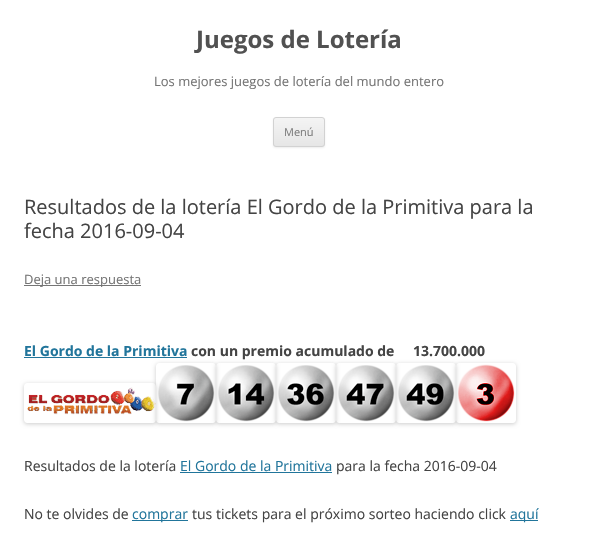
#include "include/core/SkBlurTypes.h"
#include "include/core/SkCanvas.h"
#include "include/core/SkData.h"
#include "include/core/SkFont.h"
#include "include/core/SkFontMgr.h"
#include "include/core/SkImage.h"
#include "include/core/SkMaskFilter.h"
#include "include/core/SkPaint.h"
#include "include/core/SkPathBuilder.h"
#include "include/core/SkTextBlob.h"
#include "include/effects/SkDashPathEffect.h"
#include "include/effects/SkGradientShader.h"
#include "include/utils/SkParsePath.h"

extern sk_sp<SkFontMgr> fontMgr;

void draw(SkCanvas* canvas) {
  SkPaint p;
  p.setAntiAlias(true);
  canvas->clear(SK_ColorWHITE);
  p.setColor(SkColorSetARGB(26, 64, 64, 64));
  p.setMaskFilter(SkMaskFilter::MakeBlur(kNormal_SkBlurStyle, 1));
  canvas->drawRoundRect(SkRect::MakeLTRB(273, 118, 325, 148), 3, 3, p);
  p.setMaskFilter(nullptr);
  canvas->save();
  canvas->clipPath(SkPathBuilder().moveTo(276, 117).lineTo(322, 117).cubicTo(323.5f, 117, 325, 118.5f, 325, 120).lineTo(325, 144).cubicTo(325, 145.5f, 323.5f, 147, 322, 147).lineTo(276, 147).cubicTo(274.5f, 147, 273, 145.5f, 273, 144).lineTo(273, 120).cubicTo(273, 118.5f, 274.5f, 117, 276, 117).close().detach(), true);
  {
    const SkColor colors[] = {SkColorSetRGB(244, 244, 244), SkColorSetRGB(230, 230, 230)};
    const float stops[] = {0, 1};
    const SkPoint ends[] = {{299, 118}, {299, 146}};
    p.setShader(SkGradientShader::MakeLinear(ends, colors, stops, 2, SkTileMode::kClamp));
    p.setAlpha(255);
  }
  canvas->drawRect(SkRect::MakeLTRB(273, 118, 325, 146), p);
  canvas->restore();
  p.setStyle(SkPaint::kStroke_Style);
  p.setStrokeWidth(1);
  p.setShader(nullptr);
  p.setColor(SkColorSetRGB(210, 210, 210));
  canvas->drawRoundRect(SkRect::MakeLTRB(273.5f, 117.5f, 324.5f, 146.5f), 2.5f, 2.5f, p);
  p.setStyle(SkPaint::kFill_Style);
  p.setColor(SkColorSetRGB(117, 117, 117));
  canvas->drawRect(SkRect::MakeLTRB(24, 285, 141, 286), p);
  p.setColor(SkColorSetRGB(33, 117, 155));
  canvas->drawRect(SkRect::MakeLTRB(24, 357, 187, 358), p);
  canvas->save();
  canvas->clipPath(SkPathBuilder(SkPathFillType::kEvenOdd).moveTo(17, 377).lineTo(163, 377).lineTo(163, 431).lineTo(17, 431).close().moveTo(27, 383).lineTo(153, 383).cubicTo(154.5f, 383, 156, 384.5f, 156, 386).lineTo(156, 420).cubicTo(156, 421.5f, 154.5f, 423, 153, 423).lineTo(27, 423).cubicTo(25.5f, 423, 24, 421.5f, 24, 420).lineTo(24, 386).cubicTo(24, 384.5f, 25.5f, 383, 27, 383).close().detach(), true);
  p.setColor(SkColorSetARGB(51, 0, 0, 0));
  p.setMaskFilter(SkMaskFilter::MakeBlur(kNormal_SkBlurStyle, 2));
  canvas->drawRoundRect(SkRect::MakeLTRB(24, 384, 156, 424), 3, 3, p);
  p.setMaskFilter(nullptr);
  canvas->restore();
  canvas->drawImageRect(SkImages::DeferredFromEncodedData(SkData::MakeFromFileName("images/7.png")), SkRect::MakeLTRB(27, 387, 156, 415), SkSamplingOptions());
  canvas->save();
  canvas->clipPath(SkPathBuilder(SkPathFillType::kEvenOdd).moveTo(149, 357).lineTo(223, 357).lineTo(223, 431).lineTo(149, 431).close().moveTo(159, 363).lineTo(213, 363).cubicTo(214.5f, 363, 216, 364.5f, 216, 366).lineTo(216, 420).cubicTo(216, 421.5f, 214.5f, 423, 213, 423).lineTo(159, 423).cubicTo(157.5f, 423, 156, 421.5f, 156, 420).lineTo(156, 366).cubicTo(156, 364.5f, 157.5f, 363, 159, 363).close().detach(), true);
  p.setMaskFilter(SkMaskFilter::MakeBlur(kNormal_SkBlurStyle, 2));
  canvas->drawRoundRect(SkRect::MakeLTRB(156, 364, 216, 424), 3, 3, p);
  p.setMaskFilter(nullptr);
  canvas->restore();
  canvas->drawImageRect(SkImages::DeferredFromEncodedData(SkData::MakeFromFileName("images/1.png")), SkRect::MakeLTRB(158, 365, 215, 422), SkSamplingOptions());
  canvas->save();
  canvas->clipPath(SkPathBuilder(SkPathFillType::kEvenOdd).moveTo(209, 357).lineTo(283, 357).lineTo(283, 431).lineTo(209, 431).close().moveTo(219, 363).lineTo(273, 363).cubicTo(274.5f, 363, 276, 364.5f, 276, 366).lineTo(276, 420).cubicTo(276, 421.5f, 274.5f, 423, 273, 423).lineTo(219, 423).cubicTo(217.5f, 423, 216, 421.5f, 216, 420).lineTo(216, 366).cubicTo(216, 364.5f, 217.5f, 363, 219, 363).close().detach(), true);
  p.setMaskFilter(SkMaskFilter::MakeBlur(kNormal_SkBlurStyle, 2));
  canvas->drawRoundRect(SkRect::MakeLTRB(216, 364, 276, 424), 3, 3, p);
  p.setMaskFilter(nullptr);
  canvas->restore();
  canvas->drawImageRect(SkImages::DeferredFromEncodedData(SkData::MakeFromFileName("images/2.png")), SkRect::MakeLTRB(218, 365, 275, 422), SkSamplingOptions());
  canvas->save();
  canvas->clipPath(SkPathBuilder(SkPathFillType::kEvenOdd).moveTo(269, 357).lineTo(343, 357).lineTo(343, 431).lineTo(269, 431).close().moveTo(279, 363).lineTo(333, 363).cubicTo(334.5f, 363, 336, 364.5f, 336, 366).lineTo(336, 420).cubicTo(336, 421.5f, 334.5f, 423, 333, 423).lineTo(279, 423).cubicTo(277.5f, 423, 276, 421.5f, 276, 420).lineTo(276, 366).cubicTo(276, 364.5f, 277.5f, 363, 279, 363).close().detach(), true);
  p.setMaskFilter(SkMaskFilter::MakeBlur(kNormal_SkBlurStyle, 2));
  canvas->drawRoundRect(SkRect::MakeLTRB(276, 364, 336, 424), 3, 3, p);
  p.setMaskFilter(nullptr);
  canvas->restore();
  canvas->drawImageRect(SkImages::DeferredFromEncodedData(SkData::MakeFromFileName("images/3.png")), SkRect::MakeLTRB(278, 365, 335, 422), SkSamplingOptions());
  canvas->save();
  canvas->clipPath(SkPathBuilder(SkPathFillType::kEvenOdd).moveTo(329, 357).lineTo(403, 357).lineTo(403, 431).lineTo(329, 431).close().moveTo(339, 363).lineTo(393, 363).cubicTo(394.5f, 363, 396, 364.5f, 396, 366).lineTo(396, 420).cubicTo(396, 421.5f, 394.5f, 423, 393, 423).lineTo(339, 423).cubicTo(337.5f, 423, 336, 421.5f, 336, 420).lineTo(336, 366).cubicTo(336, 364.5f, 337.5f, 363, 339, 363).close().detach(), true);
  p.setMaskFilter(SkMaskFilter::MakeBlur(kNormal_SkBlurStyle, 2));
  canvas->drawRoundRect(SkRect::MakeLTRB(336, 364, 396, 424), 3, 3, p);
  p.setMaskFilter(nullptr);
  canvas->restore();
  canvas->drawImageRect(SkImages::DeferredFromEncodedData(SkData::MakeFromFileName("images/4.png")), SkRect::MakeLTRB(338, 365, 395, 422), SkSamplingOptions());
  canvas->save();
  canvas->clipPath(SkPathBuilder(SkPathFillType::kEvenOdd).moveTo(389, 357).lineTo(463, 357).lineTo(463, 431).lineTo(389, 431).close().moveTo(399, 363).lineTo(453, 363).cubicTo(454.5f, 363, 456, 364.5f, 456, 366).lineTo(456, 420).cubicTo(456, 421.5f, 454.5f, 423, 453, 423).lineTo(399, 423).cubicTo(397.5f, 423, 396, 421.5f, 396, 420).lineTo(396, 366).cubicTo(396, 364.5f, 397.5f, 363, 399, 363).close().detach(), true);
  p.setMaskFilter(SkMaskFilter::MakeBlur(kNormal_SkBlurStyle, 2));
  canvas->drawRoundRect(SkRect::MakeLTRB(396, 364, 456, 424), 3, 3, p);
  p.setMaskFilter(nullptr);
  canvas->restore();
  canvas->drawImageRect(SkImages::DeferredFromEncodedData(SkData::MakeFromFileName("images/5.png")), SkRect::MakeLTRB(398, 365, 455, 422), SkSamplingOptions());
  canvas->save();
  canvas->clipPath(SkPathBuilder(SkPathFillType::kEvenOdd).moveTo(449, 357).lineTo(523, 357).lineTo(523, 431).lineTo(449, 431).close().moveTo(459, 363).lineTo(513, 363).cubicTo(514.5f, 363, 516, 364.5f, 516, 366).lineTo(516, 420).cubicTo(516, 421.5f, 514.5f, 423, 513, 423).lineTo(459, 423).cubicTo(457.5f, 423, 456, 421.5f, 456, 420).lineTo(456, 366).cubicTo(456, 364.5f, 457.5f, 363, 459, 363).close().detach(), true);
  p.setMaskFilter(SkMaskFilter::MakeBlur(kNormal_SkBlurStyle, 2));
  canvas->drawRoundRect(SkRect::MakeLTRB(456, 364, 516, 424), 3, 3, p);
  p.setMaskFilter(nullptr);
  canvas->restore();
  canvas->drawImageRect(SkImages::DeferredFromEncodedData(SkData::MakeFromFileName("images/6.png")), SkRect::MakeLTRB(458, 364, 515, 422), SkSamplingOptions());
  p.setColor(SkColorSetRGB(33, 117, 155));
  canvas->drawRect(SkRect::MakeLTRB(180, 472, 332, 473), p);
  canvas->drawRect(SkRect::MakeLTRB(132, 520, 188, 521), p);
  canvas->drawRect(SkRect::MakeLTRB(510, 520, 538, 521), p);
  SkFont font1(fontMgr->matchFamilyStyle("Open Sans", SkFontStyle::Bold()), 24);
  font1.setSubpixel(true);
  p.setColor(SkColorSetRGB(81, 81, 81));
  canvas->drawString("Juegos de Lotería", 196, 48, font1, p);
  SkFont font2(fontMgr->matchFamilyStyle("Open Sans", SkFontStyle::Normal()), 13);
  font2.setSubpixel(true);
  p.setColor(SkColorSetRGB(117, 117, 117));
  canvas->drawString("Los mejores juegos de lotería del mundo entero", 154, 86, font2, p);
  SkFont font3(fontMgr->matchFamilyStyle("Open Sans", SkFontStyle::Normal()), 11);
  font3.setSubpixel(true);
  p.setColor(SkColorSetRGB(124, 124, 124));
  canvas->drawString("Menú", 284, 136, font3, p);
  SkFont font4(fontMgr->matchFamilyStyle("Open Sans", SkFontStyle::Normal()), 20);
  font4.setSubpixel(true);
  p.setColor(SkColorSetRGB(68, 68, 68));
  canvas->drawString("Resultados de la lotería El Gordo de la Primitiva para la", 24, 214, font4, p);
  canvas->drawString("fecha 2016-09-04", 24, 238, font4, p);
  p.setColor(SkColorSetRGB(117, 117, 117));
  canvas->drawString("Deja una respuesta", 24, 284, font2, p);
  SkFont font5(fontMgr->matchFamilyStyle("Open Sans", SkFontStyle::Bold()), 14);
  font5.setSubpixel(true);
  p.setColor(SkColorSetRGB(33, 117, 155));
  canvas->drawString("El Gordo de la Primitiva", 24, 356, font5, p);
  p.setColor(SkColorSetRGB(68, 68, 68));
  canvas->drawString("con un premio acumulado de", 191, 356, font5, p);
  canvas->drawString("13.700.000", 413, 356, font5, p);
  SkFont font6(fontMgr->matchFamilyStyle("Open Sans", SkFontStyle::Normal()), 14);
  font6.setSubpixel(true);
  canvas->drawString("Resultados de la lotería", 24, 471, font6, p);
  p.setColor(SkColorSetRGB(33, 117, 155));
  canvas->drawString("El Gordo de la Primitiva", 180, 471, font6, p);
  p.setColor(SkColorSetRGB(68, 68, 68));
  canvas->drawString("para la fecha 2016-09-04", 336, 471, font6, p);
  canvas->drawString("No te olvides de", 24, 519, font6, p);
  p.setColor(SkColorSetRGB(33, 117, 155));
  canvas->drawString("comprar", 132, 519, font6, p);
  p.setColor(SkColorSetRGB(68, 68, 68));
  canvas->drawString("tus tickets para el próximo sorteo haciendo click", 192, 519, font6, p);
  p.setColor(SkColorSetRGB(33, 117, 155));
  canvas->drawString("aquí", 510, 519, font6, p);
}
